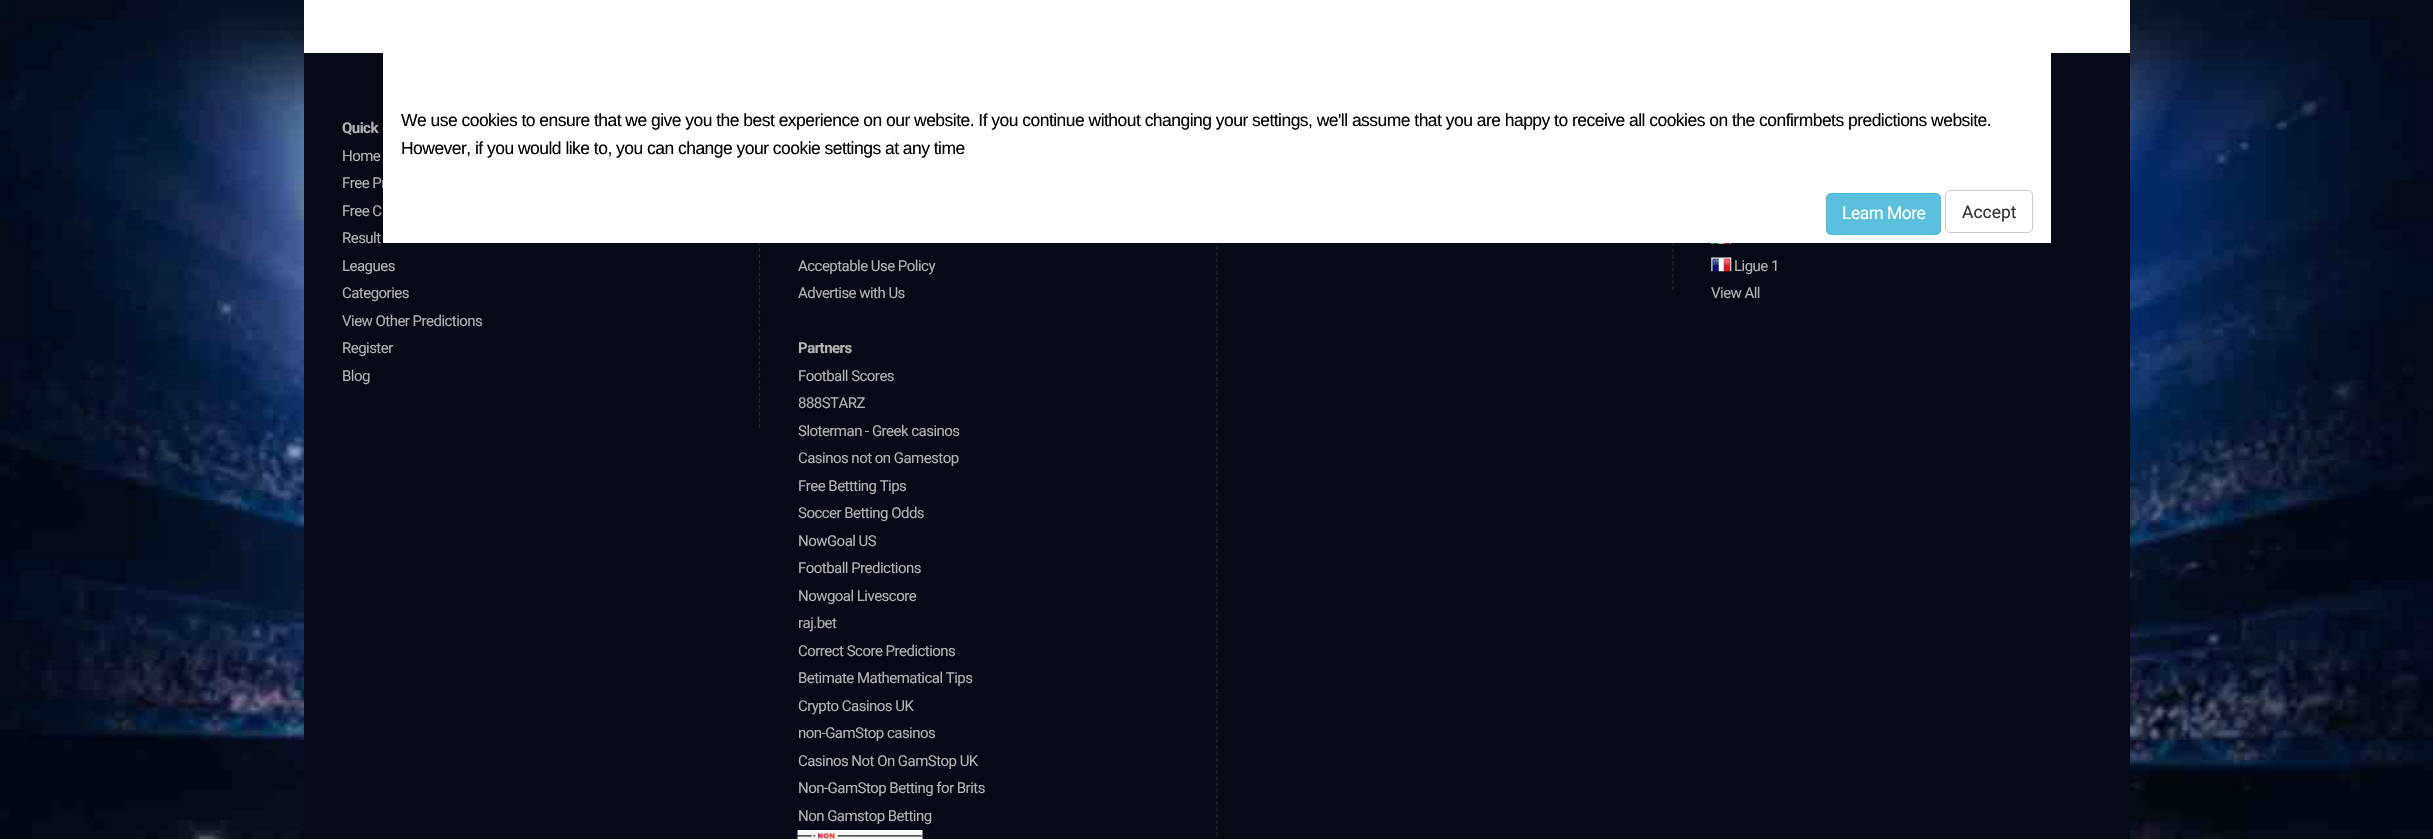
#include "include/core/SkBlurTypes.h"
#include "include/core/SkCanvas.h"
#include "include/core/SkData.h"
#include "include/core/SkFont.h"
#include "include/core/SkFontMgr.h"
#include "include/core/SkImage.h"
#include "include/core/SkMaskFilter.h"
#include "include/core/SkPaint.h"
#include "include/core/SkPathBuilder.h"
#include "include/core/SkTextBlob.h"
#include "include/effects/SkDashPathEffect.h"
#include "include/effects/SkGradientShader.h"
#include "include/utils/SkParsePath.h"

extern sk_sp<SkFontMgr> fontMgr;

void draw(SkCanvas* canvas) {
  SkPaint p;
  p.setAntiAlias(true);
  auto spacedText = [&](const char* s, float x, float y, const SkFont& font, const SkPaint& ink, float letter, float word) {
    std::vector<SkGlyphID> glyphs(font.countText(s, strlen(s), SkTextEncoding::kUTF8));
    std::vector<float> xs(glyphs.size());
    font.textToGlyphs(s, strlen(s), SkTextEncoding::kUTF8, glyphs);
    font.getXPos(glyphs, xs, x);
    float extra = 0;
    for (size_t i = 0; i < glyphs.size(); i++) {
      xs[i] += extra;
      extra += letter + word * (glyphs[i] == font.unicharToGlyph(' '));
    }
    canvas->drawTextBlob(SkTextBlob::MakeFromPosHGlyphs(glyphs, xs, y, font), 0, 0, ink);
  };
  canvas->clear(SK_ColorWHITE);
  canvas->drawImageRect(SkImages::DeferredFromEncodedData(SkData::MakeFromFileName("images/1.png")), SkRect::MakeLTRB(0, 0, 2433, 839), SkSamplingOptions());
  p.setColor(SK_ColorWHITE);
  canvas->drawRect(SkRect::MakeLTRB(304, 0, 2130, 53), p);
  p.setColor(SkColorSetRGB(6, 10, 22));
  canvas->drawRect(SkRect::MakeLTRB(304, 53, 2130, 839), p);
  p.setStyle(SkPaint::kStroke_Style);
  p.setStrokeWidth(1.2f);
  p.setColor(SkColorSetRGB(41, 41, 41));
  p.setPathEffect(SkDashPathEffect::Make({{3.75f, 2.55f}}, 0));
  canvas->drawPath(SkPathBuilder().moveTo(759.5f, 77.5f).lineTo(759.5f, 427.5f).detach(), p);
  p.setPathEffect(nullptr);
  p.setPathEffect(SkDashPathEffect::Make({{3.75f, 2.49f}}, 0));
  canvas->drawPath(SkPathBuilder().moveTo(1217, 77.5f).lineTo(1217, 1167.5f).detach(), p);
  p.setPathEffect(nullptr);
  canvas->drawImageRect(SkImages::DeferredFromEncodedData(SkData::MakeFromFileName("images/2.png")), SkRect::MakeLTRB(797, 830, 923, 839), SkSamplingOptions());
  p.setPathEffect(SkDashPathEffect::Make({{3.75f, 2.58f}}, 0));
  canvas->drawPath(SkPathBuilder().moveTo(1673, 77.5f).lineTo(1673, 290).detach(), p);
  p.setPathEffect(nullptr);
  canvas->drawImageRect(SkImages::DeferredFromEncodedData(SkData::MakeFromFileName("images/3.png")), SkRect::MakeLTRB(1711, 243, 1732, 244), SkSamplingOptions());
  canvas->drawImageRect(SkImages::DeferredFromEncodedData(SkData::MakeFromFileName("images/4.png")), SkRect::MakeLTRB(1711, 257, 1732, 272), SkSamplingOptions());
  SkFont font1(fontMgr->matchFamilyStyle("Roboto", SkFontStyle::Bold()), 15);
  font1.setSubpixel(true);
  p.setStyle(SkPaint::kFill_Style);
  p.setColor(SkColorSetRGB(179, 179, 179));
  spacedText("Quick", 342, 133, font1, p, -0.53f, 0);
  SkFont font2(fontMgr->matchFamilyStyle("Roboto", SkFontStyle::Normal()), 15);
  font2.setSubpixel(true);
  spacedText("Home", 342, 161, font2, p, -0.53f, 0);
  spacedText("Free Pr", 342, 188, font2, p, -0.53f, 0);
  p.setColor(SK_ColorWHITE);
  canvas->drawRect(SkRect::MakeLTRB(383, 53, 2051, 243), p);
  p.setStyle(SkPaint::kStroke_Style);
  p.setStrokeWidth(1);
  p.setColor(SkColorSetRGB(204, 204, 204));
  canvas->drawRoundRect(SkRect::MakeLTRB(1945.5f, 190.5f, 2032.5f, 232.5f), 4.5f, 4.5f, p);
  SkFont font3(fontMgr->matchFamilyStyle("Roboto", SkFontStyle::Normal()), 17.5f);
  font3.setSubpixel(true);
  p.setStyle(SkPaint::kFill_Style);
  p.setColor(SkColorSetRGB(51, 51, 51));
  canvas->drawString("Accept", 1962, 218, font3, p);
  p.setColor(SkColorSetRGB(91, 192, 222));
  canvas->drawRoundRect(SkRect::MakeLTRB(1826.5f, 193.5f, 1940.5f, 234.5f), 4.5f, 4.5f, p);
  p.setStyle(SkPaint::kStroke_Style);
  p.setColor(SkColorSetRGB(70, 184, 218));
  canvas->drawRoundRect(SkRect::MakeLTRB(1826.5f, 193.5f, 1940.5f, 234.5f), 4.5f, 4.5f, p);
  p.setStyle(SkPaint::kFill_Style);
  p.setColor(SK_ColorWHITE);
  spacedText("Learn More", 1842, 219, font3, p, -0.53f, 0);
  SkFont font4(fontMgr->matchFamilyStyle("Liberation Sans", SkFontStyle::Normal()), 17.5f);
  font4.setSubpixel(true);
  p.setColor(SK_ColorBLACK);
  spacedText("However, if you would like to, you can change your cookie settings at any time", 401, 154, font4, p, -0.53f, 0);
  spacedText("We use cookies to ensure that we give you the best experience on our website. If you continue without changing your settings, we'll assume that you are happy to receive all cookies on the confirmbets predictions website.", 401, 126, font4, p, -0.53f, 0);
  p.setColor(SkColorSetRGB(179, 179, 179));
  spacedText("Free C", 342, 216, font2, p, -0.53f, 0);
  spacedText("Result", 342, 243, font2, p, -0.53f, 0);
  spacedText("Leagues", 342, 271, font2, p, -0.53f, 0);
  spacedText("Categories", 342, 298, font2, p, -0.53f, 0);
  spacedText("View Other Predictions", 342, 326, font2, p, -0.53f, 0);
  spacedText("Register", 342, 353, font2, p, -0.53f, 0);
  spacedText("Blog", 342, 381, font2, p, -0.53f, 0);
  spacedText("Acceptable Use Policy", 798, 271, font2, p, -0.53f, 0);
  spacedText("Advertise with Us", 798, 298, font2, p, -0.53f, 0);
  spacedText("Partners", 798, 353, font1, p, -0.53f, 0);
  spacedText("Football Scores", 798, 381, font2, p, -0.53f, 0);
  spacedText("888STARZ", 798, 408, font2, p, -0.53f, 0);
  spacedText("Sloterman - Greek casinos", 798, 436, font2, p, -0.53f, 0);
  spacedText("Casinos not on Gamestop", 798, 463, font2, p, -0.53f, 0);
  spacedText("Free Bettting Tips", 798, 491, font2, p, -0.53f, 0);
  spacedText("Soccer Betting Odds", 798, 518, font2, p, -0.53f, 0);
  spacedText("NowGoal US", 798, 546, font2, p, -0.53f, 0);
  spacedText("Football Predictions", 798, 573, font2, p, -0.53f, 0);
  spacedText("Nowgoal Livescore", 798, 601, font2, p, -0.53f, 0);
  spacedText("raj.bet", 798, 628, font2, p, -0.53f, 0);
  spacedText("Correct Score Predictions", 798, 656, font2, p, -0.53f, 0);
  spacedText("Betimate Mathematical Tips", 798, 683, font2, p, -0.53f, 0);
  spacedText("Crypto Casinos UK", 798, 711, font2, p, -0.53f, 0);
  spacedText("non-GamStop casinos", 798, 738, font2, p, -0.53f, 0);
  spacedText("Casinos Not On GamStop UK", 798, 766, font2, p, -0.53f, 0);
  spacedText("Non-GamStop Betting for Brits", 798, 793, font2, p, -0.53f, 0);
  spacedText("Non Gamstop Betting", 798, 821, font2, p, -0.53f, 0);
  spacedText("Ligue 1", 1734, 271, font2, p, -0.53f, 0);
  spacedText("View All", 1711, 298, font2, p, -0.53f, 0);
}
